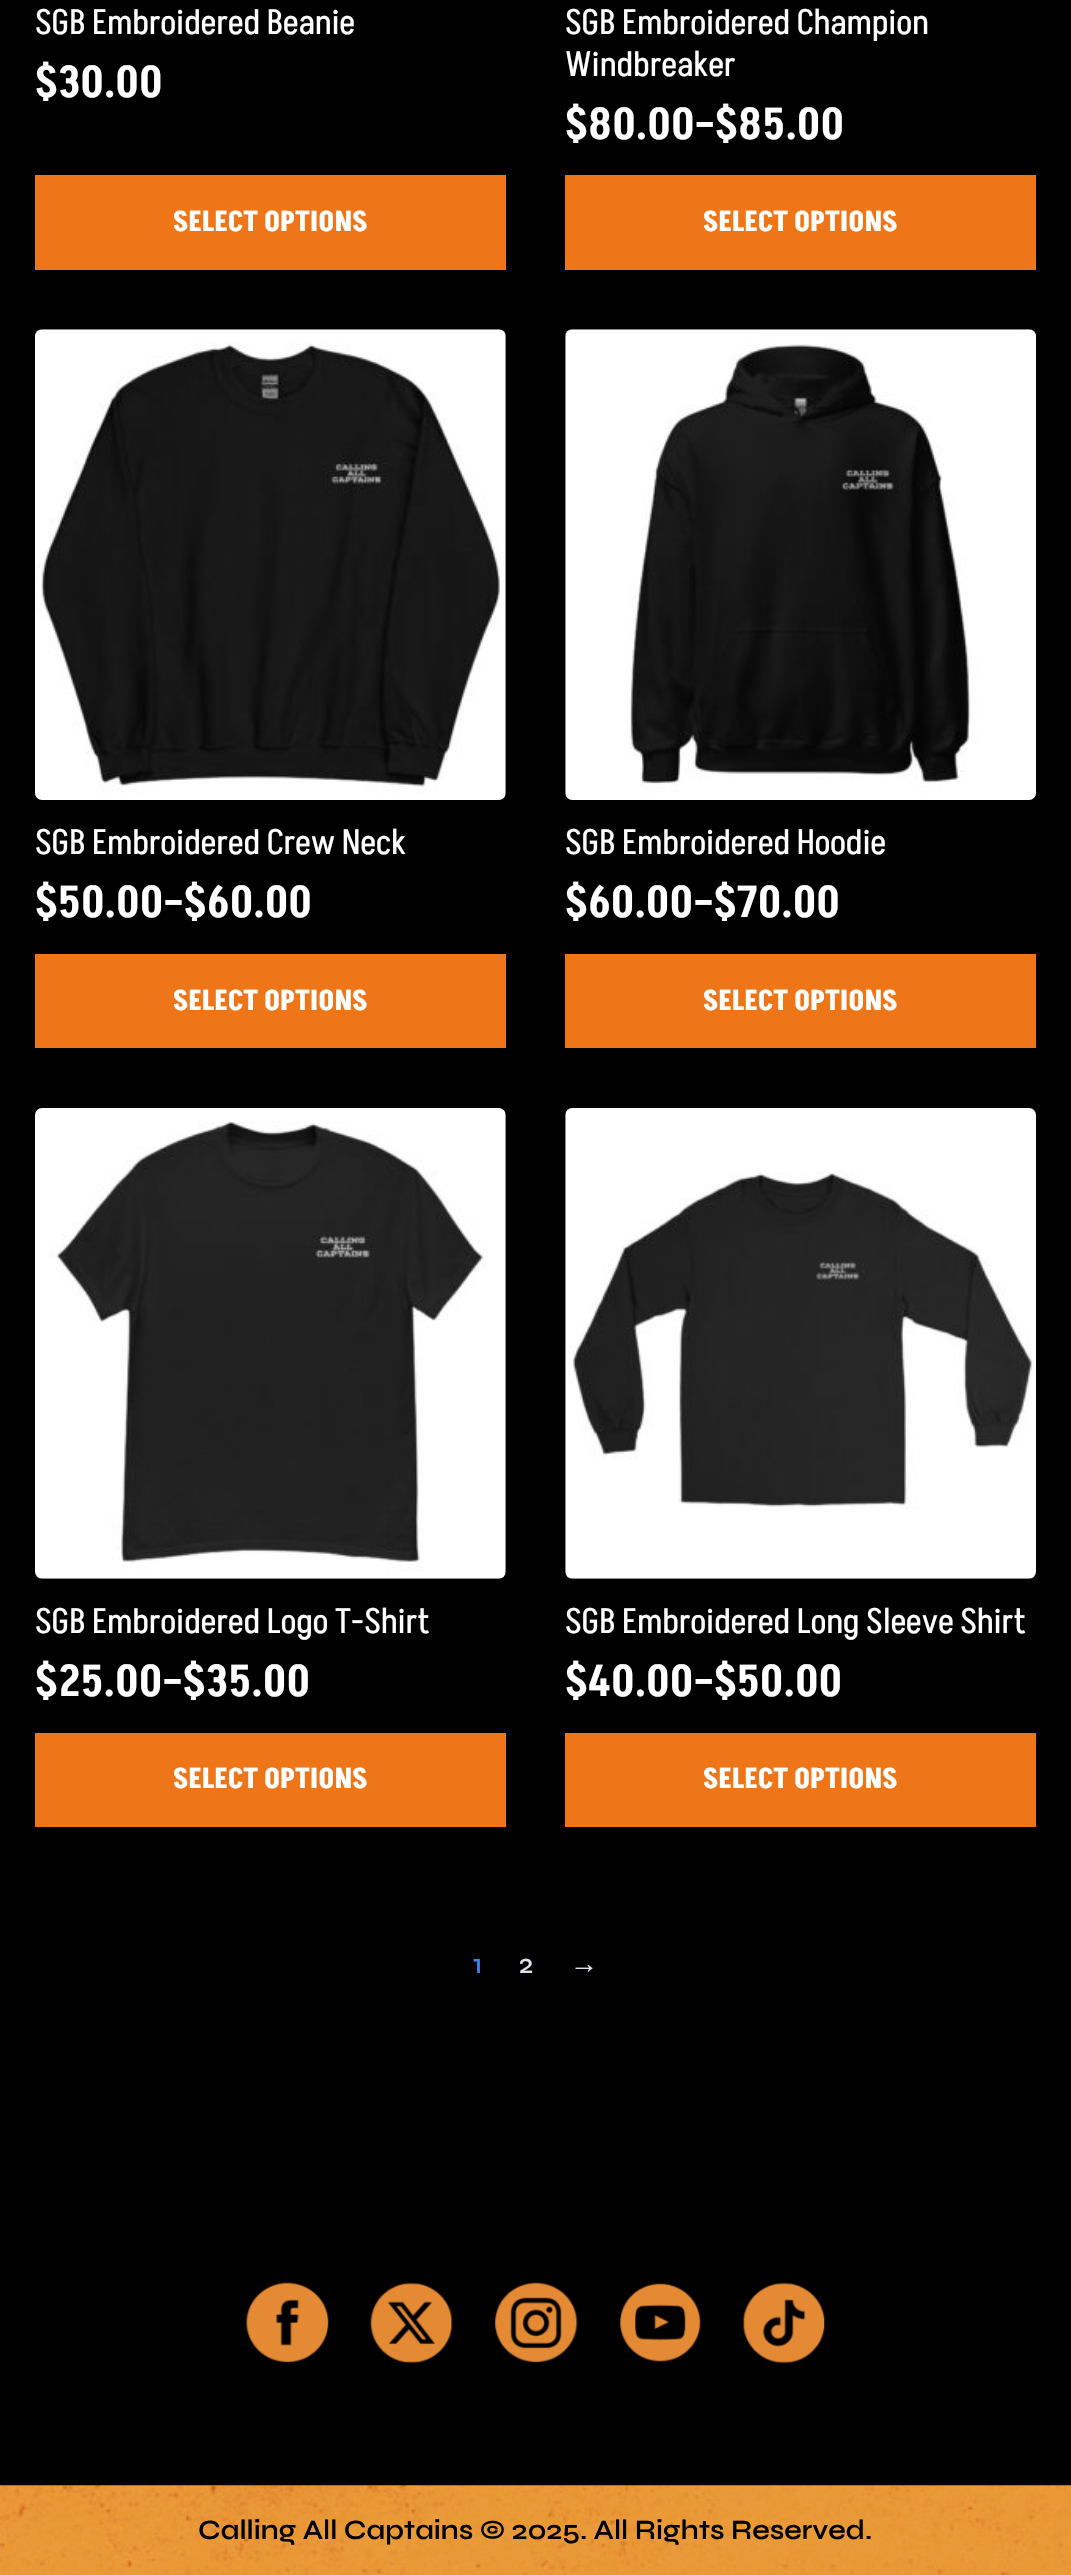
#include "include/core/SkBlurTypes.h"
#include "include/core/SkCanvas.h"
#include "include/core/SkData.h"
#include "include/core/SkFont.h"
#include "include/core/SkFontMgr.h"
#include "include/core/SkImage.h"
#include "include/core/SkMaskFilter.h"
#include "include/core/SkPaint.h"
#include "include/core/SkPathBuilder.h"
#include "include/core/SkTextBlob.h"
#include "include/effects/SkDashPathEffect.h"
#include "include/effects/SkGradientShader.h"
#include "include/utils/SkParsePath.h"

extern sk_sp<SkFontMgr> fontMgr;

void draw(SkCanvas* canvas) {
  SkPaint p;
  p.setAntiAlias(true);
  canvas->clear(SK_ColorBLACK);
  p.setColor(SkColorSetRGB(239, 118, 24));
  canvas->drawRect(SkRect::MakeLTRB(35, 175, 506, 270), p);
  canvas->drawRect(SkRect::MakeLTRB(565, 175, 1036, 270), p);
  canvas->drawImageRect(SkImages::DeferredFromEncodedData(SkData::MakeFromFileName("images/1.png")), SkRect::MakeLTRB(35, 329, 506, 800), SkSamplingOptions());
  canvas->drawRect(SkRect::MakeLTRB(35, 954, 506, 1048), p);
  canvas->drawImageRect(SkImages::DeferredFromEncodedData(SkData::MakeFromFileName("images/2.png")), SkRect::MakeLTRB(565, 329, 1036, 800), SkSamplingOptions());
  canvas->drawRect(SkRect::MakeLTRB(565, 954, 1036, 1048), p);
  canvas->drawImageRect(SkImages::DeferredFromEncodedData(SkData::MakeFromFileName("images/3.png")), SkRect::MakeLTRB(35, 1108, 506, 1579), SkSamplingOptions());
  canvas->drawRect(SkRect::MakeLTRB(35, 1733, 506, 1827), p);
  canvas->drawImageRect(SkImages::DeferredFromEncodedData(SkData::MakeFromFileName("images/4.png")), SkRect::MakeLTRB(565, 1108, 1036, 1579), SkSamplingOptions());
  canvas->drawRect(SkRect::MakeLTRB(565, 1733, 1036, 1827), p);
  canvas->drawImageRect(SkImages::DeferredFromEncodedData(SkData::MakeFromFileName("images/5.png")), SkRect::MakeLTRB(246, 2282, 329, 2363), SkSamplingOptions());
  canvas->drawImageRect(SkImages::DeferredFromEncodedData(SkData::MakeFromFileName("images/6.png")), SkRect::MakeLTRB(370, 2282, 453, 2363), SkSamplingOptions());
  canvas->drawImageRect(SkImages::DeferredFromEncodedData(SkData::MakeFromFileName("images/7.png")), SkRect::MakeLTRB(495, 2282, 578, 2363), SkSamplingOptions());
  canvas->drawImageRect(SkImages::DeferredFromEncodedData(SkData::MakeFromFileName("images/8.png")), SkRect::MakeLTRB(620, 2283, 701, 2362), SkSamplingOptions());
  canvas->drawImageRect(SkImages::DeferredFromEncodedData(SkData::MakeFromFileName("images/9.png")), SkRect::MakeLTRB(743, 2282, 825, 2363), SkSamplingOptions());
  canvas->drawImageRect(SkImages::DeferredFromEncodedData(SkData::MakeFromFileName("images/10.png")), SkRect::MakeLTRB(0, 2485, 1071, 2575), SkSamplingOptions());
  SkFont font1(fontMgr->matchFamilyStyle("Akshar", SkFontStyle::Normal()), 35);
  font1.setSubpixel(true);
  p.setColor(SK_ColorWHITE);
  canvas->drawString("SGB Embroidered Beanie", 35, 34, font1, p);
  SkFont font2(fontMgr->matchFamilyStyle("Akshar", SkFontStyle(600, SkFontStyle::kNormal_Width, SkFontStyle::kUpright_Slant)), 43.75f);
  font2.setSubpixel(true);
  canvas->drawString("$30.00", 35, 97, font2, p);
  SkFont font3(fontMgr->matchFamilyStyle("Akshar", SkFontStyle::Bold()), 28);
  font3.setSubpixel(true);
  canvas->drawString("SELECT OPTIONS", 173, 231, font3, p);
  canvas->drawString("SGB Embroidered Champion", 565, 34, font1, p);
  canvas->drawString("Windbreaker", 565, 76, font1, p);
  canvas->drawString("$80.00–$85.00", 565, 139, font2, p);
  canvas->drawString("SELECT OPTIONS", 703, 231, font3, p);
  canvas->drawString("SGB Embroidered Crew Neck", 35, 854, font1, p);
  canvas->drawString("$50.00–$60.00", 35, 917, font2, p);
  canvas->drawString("SELECT OPTIONS", 173, 1010, font3, p);
  canvas->drawString("SGB Embroidered Hoodie", 565, 854, font1, p);
  canvas->drawString("$60.00–$70.00", 565, 917, font2, p);
  canvas->drawString("SELECT OPTIONS", 703, 1010, font3, p);
  canvas->drawString("SGB Embroidered Logo T-Shirt", 35, 1633, font1, p);
  canvas->drawString("$25.00–$35.00", 35, 1696, font2, p);
  canvas->drawString("SELECT OPTIONS", 173, 1788, font3, p);
  canvas->drawString("SGB Embroidered Long Sleeve Shirt", 565, 1633, font1, p);
  canvas->drawString("$40.00–$50.00", 565, 1696, font2, p);
  canvas->drawString("SELECT OPTIONS", 703, 1788, font3, p);
  SkFont font4(fontMgr->matchFamilyStyle("Syne", SkFontStyle(500, SkFontStyle::kNormal_Width, SkFontStyle::kUpright_Slant)), 28);
  font4.setSubpixel(true);
  p.setColor(SkColorSetRGB(59, 130, 246));
  canvas->drawString("1", 473, 1973, font4, p);
  p.setColor(SkColorSetRGB(228, 222, 230));
  canvas->drawString("2", 519, 1973, font4, p);
  SkFont font5(fontMgr->matchFamilyStyle("Liberation Sans", SkFontStyle::Normal()), 28);
  font5.setSubpixel(true);
  canvas->drawString("→", 570, 1973, font5, p);
  SkFont font6(fontMgr->matchFamilyStyle("Syne", SkFontStyle(600, SkFontStyle::kNormal_Width, SkFontStyle::kUpright_Slant)), 28);
  font6.setSubpixel(true);
  p.setColor(SK_ColorBLACK);
  canvas->drawString("Calling All Captains © 2025. All Rights Reserved.", 198, 2539, font6, p);
}
